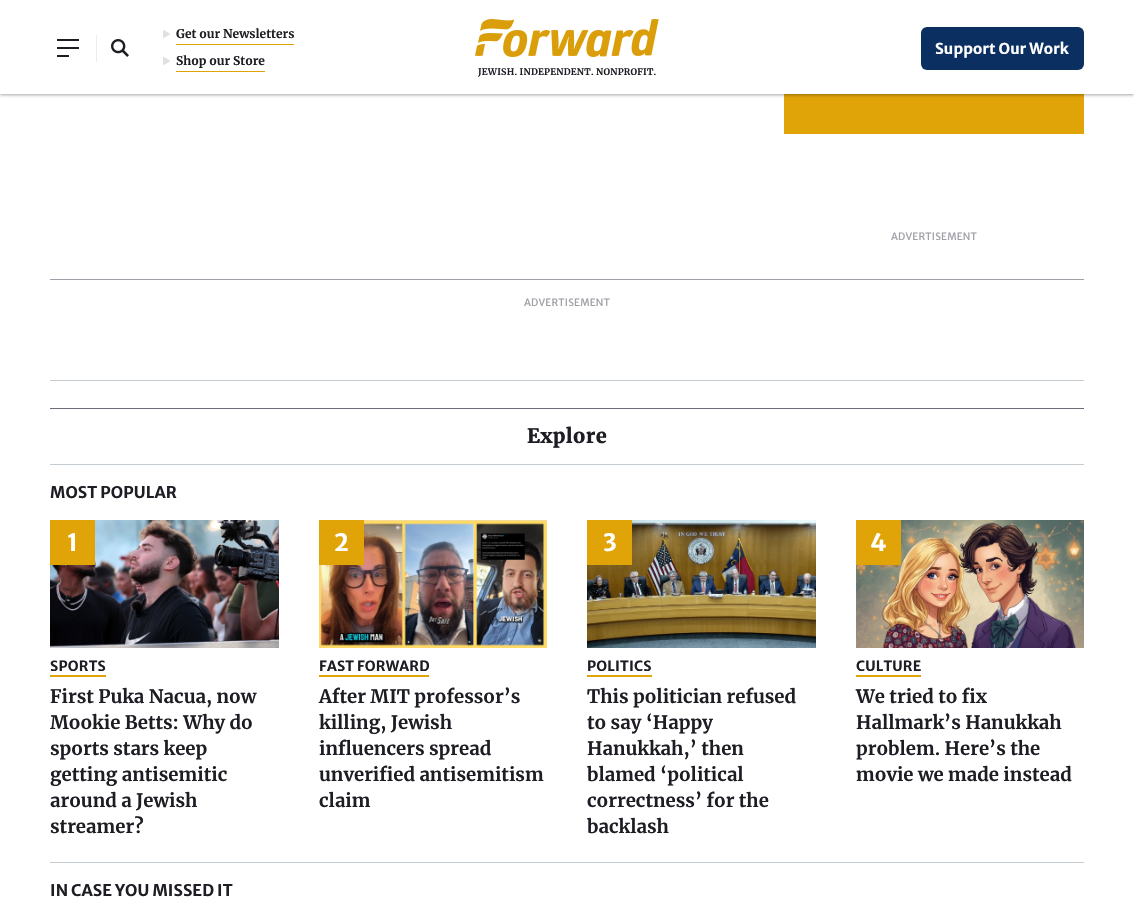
#include "include/core/SkBlurTypes.h"
#include "include/core/SkCanvas.h"
#include "include/core/SkData.h"
#include "include/core/SkFont.h"
#include "include/core/SkFontMgr.h"
#include "include/core/SkImage.h"
#include "include/core/SkMaskFilter.h"
#include "include/core/SkPaint.h"
#include "include/core/SkPathBuilder.h"
#include "include/core/SkTextBlob.h"
#include "include/effects/SkDashPathEffect.h"
#include "include/effects/SkGradientShader.h"
#include "include/utils/SkParsePath.h"

extern sk_sp<SkFontMgr> fontMgr;

void draw(SkCanvas* canvas) {
  SkPaint p;
  p.setAntiAlias(true);
  auto spacedText = [&](const char* s, float x, float y, const SkFont& font, const SkPaint& ink, float letter, float word) {
    std::vector<SkGlyphID> glyphs(font.countText(s, strlen(s), SkTextEncoding::kUTF8));
    std::vector<float> xs(glyphs.size());
    font.textToGlyphs(s, strlen(s), SkTextEncoding::kUTF8, glyphs);
    font.getXPos(glyphs, xs, x);
    float extra = 0;
    for (size_t i = 0; i < glyphs.size(); i++) {
      xs[i] += extra;
      extra += letter + word * (glyphs[i] == font.unicharToGlyph(' '));
    }
    canvas->drawTextBlob(SkTextBlob::MakeFromPosHGlyphs(glyphs, xs, y, font), 0, 0, ink);
  };
  canvas->clear(SK_ColorWHITE);
  canvas->drawImageRect(SkImages::DeferredFromEncodedData(SkData::MakeFromFileName("images/4.png")), SkRect::MakeLTRB(784, 94, 1084, 134), SkSamplingOptions());
  p.setColor(SkColorSetARGB(89, 0, 0, 0));
  p.setMaskFilter(SkMaskFilter::MakeBlur(kNormal_SkBlurStyle, 1.5f));
  canvas->drawRect(SkRect::MakeLTRB(0, 1, 1134, 95), p);
  p.setMaskFilter(nullptr);
  p.setColor(SK_ColorWHITE);
  canvas->drawRect(SkRect::MakeLTRB(0, 0, 1134, 94), p);
  p.setColor(SkColorSetRGB(30, 29, 36));
  canvas->drawRect(SkRect::MakeLTRB(57, 39, 79, 41), p);
  p.setColor(SkColorSetRGB(233, 237, 240));
  canvas->drawRect(SkRect::MakeLTRB(96, 35, 97, 62), p);
  p.setColor(SkColorSetRGB(30, 29, 36));
  canvas->drawRect(SkRect::MakeLTRB(57, 47, 79, 49), p);
  canvas->drawRect(SkRect::MakeLTRB(57, 55, 69, 57), p);
  canvas->drawImageRect(SkImages::DeferredFromEncodedData(SkData::MakeFromFileName("images/1.png")), SkRect::MakeLTRB(111, 39, 129, 57), SkSamplingOptions());
  p.setColor(SkColorSetRGB(224, 164, 8));
  canvas->drawRect(SkRect::MakeLTRB(176, 44, 294, 45), p);
  canvas->drawImageRect(SkImages::DeferredFromEncodedData(SkData::MakeFromFileName("images/2.png")), SkRect::MakeLTRB(163, 30, 170, 38), SkSamplingOptions());
  canvas->drawRect(SkRect::MakeLTRB(176, 71, 265, 72), p);
  canvas->drawImageRect(SkImages::DeferredFromEncodedData(SkData::MakeFromFileName("images/2.png")), SkRect::MakeLTRB(163, 57, 170, 65), SkSamplingOptions());
  p.setColor(SkColorSetRGB(11, 47, 96));
  canvas->drawRoundRect(SkRect::MakeLTRB(921, 27, 1084, 70), 6, 6, p);
  canvas->drawImageRect(SkImages::DeferredFromEncodedData(SkData::MakeFromFileName("images/3.png")), SkRect::MakeLTRB(475, 19, 659, 57), SkSamplingOptions());
  p.setColor(SkColorSetRGB(160, 160, 168));
  canvas->drawRect(SkRect::MakeLTRB(50, 279, 1084, 280), p);
  p.setColor(SkColorSetRGB(196, 204, 209));
  canvas->drawRect(SkRect::MakeLTRB(50, 380, 1084, 381), p);
  p.setColor(SkColorSetRGB(109, 109, 119));
  canvas->drawRect(SkRect::MakeLTRB(50, 408, 1084, 409), p);
  p.setColor(SkColorSetRGB(196, 204, 209));
  canvas->drawRect(SkRect::MakeLTRB(50, 464, 1084, 465), p);
  canvas->drawImageRect(SkImages::DeferredFromEncodedData(SkData::MakeFromFileName("images/5.png")), SkRect::MakeLTRB(50, 520, 279, 648), SkSamplingOptions());
  p.setColor(SkColorSetRGB(224, 164, 8));
  canvas->drawRect(SkRect::MakeLTRB(50, 520, 95, 565), p);
  canvas->drawRect(SkRect::MakeLTRB(50, 675, 106, 677), p);
  canvas->drawImageRect(SkImages::DeferredFromEncodedData(SkData::MakeFromFileName("images/6.png")), SkRect::MakeLTRB(319, 520, 547, 648), SkSamplingOptions());
  canvas->drawRect(SkRect::MakeLTRB(319, 520, 364, 565), p);
  canvas->drawRect(SkRect::MakeLTRB(319, 675, 429, 677), p);
  canvas->drawImageRect(SkImages::DeferredFromEncodedData(SkData::MakeFromFileName("images/7.png")), SkRect::MakeLTRB(587, 520, 816, 648), SkSamplingOptions());
  canvas->drawRect(SkRect::MakeLTRB(587, 520, 632, 565), p);
  canvas->drawRect(SkRect::MakeLTRB(587, 675, 652, 677), p);
  canvas->drawImageRect(SkImages::DeferredFromEncodedData(SkData::MakeFromFileName("images/8.png")), SkRect::MakeLTRB(856, 520, 1084, 648), SkSamplingOptions());
  canvas->drawRect(SkRect::MakeLTRB(856, 520, 901, 565), p);
  canvas->drawRect(SkRect::MakeLTRB(856, 675, 921, 677), p);
  p.setColor(SkColorSetRGB(196, 204, 209));
  canvas->drawRect(SkRect::MakeLTRB(50, 862, 1084, 863), p);
  SkFont font1(fontMgr->matchFamilyStyle("Merriweather", SkFontStyle::Bold()), 12);
  font1.setSubpixel(true);
  p.setColor(SkColorSetRGB(30, 29, 36));
  canvas->drawString("Get our Newsletters", 176, 38, font1, p);
  canvas->drawString("Shop our Store", 176, 65, font1, p);
  SkFont font2(fontMgr->matchFamilyStyle("Merriweather Sans", SkFontStyle::Bold()), 15);
  font2.setSubpixel(true);
  p.setColor(SK_ColorWHITE);
  spacedText("Support Our Work", 935, 54, font2, p, 0.1f, 0);
  SkFont font3(fontMgr->matchFamilyStyle("Merriweather", SkFontStyle::Bold()), 9);
  font3.setSubpixel(true);
  p.setColor(SkColorSetRGB(30, 29, 36));
  spacedText("JEWISH. INDEPENDENT. NONPROFIT.", 478, 75, font3, p, 0.2f, 0);
  SkFont font4(fontMgr->matchFamilyStyle("Merriweather Sans", SkFontStyle::Normal()), 10);
  font4.setSubpixel(true);
  p.setColor(SkColorSetRGB(160, 160, 168));
  spacedText("ADVERTISEMENT", 891, 240, font4, p, 0.2f, 0);
  spacedText("ADVERTISEMENT", 524, 306, font4, p, 0.2f, 0);
  SkFont font5(fontMgr->matchFamilyStyle("Merriweather", SkFontStyle(900, SkFontStyle::kNormal_Width, SkFontStyle::kUpright_Slant)), 20);
  font5.setSubpixel(true);
  p.setColor(SkColorSetRGB(30, 29, 36));
  spacedText("Explore", 527, 443, font5, p, 0.2f, 0);
  SkFont font6(fontMgr->matchFamilyStyle("Merriweather Sans", SkFontStyle::Bold()), 16);
  font6.setSubpixel(true);
  spacedText("MOST POPULAR", 50, 498, font6, p, 0.1f, 0);
  SkFont font7(fontMgr->matchFamilyStyle("Merriweather Sans", SkFontStyle::Bold()), 24);
  font7.setSubpixel(true);
  p.setColor(SK_ColorWHITE);
  canvas->drawString("1", 67, 551, font7, p);
  SkFont font8(fontMgr->matchFamilyStyle("Merriweather Sans", SkFontStyle::Bold()), 14);
  font8.setSubpixel(true);
  p.setColor(SkColorSetRGB(30, 29, 36));
  spacedText("SPORTS", 50, 671, font8, p, 0.2f, 0);
  SkFont font9(fontMgr->matchFamilyStyle("Merriweather", SkFontStyle::Bold()), 18.5f);
  font9.setSubpixel(true);
  canvas->drawString("First Puka Nacua, now", 50, 703, font9, p);
  canvas->drawString("Mookie Betts: Why do", 50, 729, font9, p);
  canvas->drawString("sports stars keep", 50, 755, font9, p);
  canvas->drawString("getting antisemitic", 50, 781, font9, p);
  canvas->drawString("around a Jewish", 50, 807, font9, p);
  canvas->drawString("streamer?", 50, 833, font9, p);
  p.setColor(SK_ColorWHITE);
  canvas->drawString("2", 334, 551, font7, p);
  p.setColor(SkColorSetRGB(30, 29, 36));
  spacedText("FAST FORWARD", 319, 671, font8, p, 0.2f, 0);
  canvas->drawString("After MIT professor’s", 319, 703, font9, p);
  canvas->drawString("killing, Jewish", 319, 729, font9, p);
  canvas->drawString("influencers spread", 319, 755, font9, p);
  canvas->drawString("unverified antisemitism", 319, 781, font9, p);
  canvas->drawString("claim", 319, 807, font9, p);
  p.setColor(SK_ColorWHITE);
  canvas->drawString("3", 603, 551, font7, p);
  p.setColor(SkColorSetRGB(30, 29, 36));
  spacedText("POLITICS", 587, 671, font8, p, 0.2f, 0);
  canvas->drawString("This politician refused", 587, 703, font9, p);
  canvas->drawString("to say ‘Happy", 587, 729, font9, p);
  canvas->drawString("Hanukkah,’ then", 587, 755, font9, p);
  canvas->drawString("blamed ‘political", 587, 781, font9, p);
  canvas->drawString("correctness’ for the", 587, 807, font9, p);
  canvas->drawString("backlash", 587, 833, font9, p);
  p.setColor(SK_ColorWHITE);
  canvas->drawString("4", 870, 551, font7, p);
  p.setColor(SkColorSetRGB(30, 29, 36));
  spacedText("CULTURE", 856, 671, font8, p, 0.2f, 0);
  canvas->drawString("We tried to fix", 856, 703, font9, p);
  canvas->drawString("Hallmark’s Hanukkah", 856, 729, font9, p);
  canvas->drawString("problem. Here’s the", 856, 755, font9, p);
  canvas->drawString("movie we made instead", 856, 781, font9, p);
  spacedText("IN CASE YOU MISSED IT", 50, 896, font6, p, 0.1f, 0);
}
